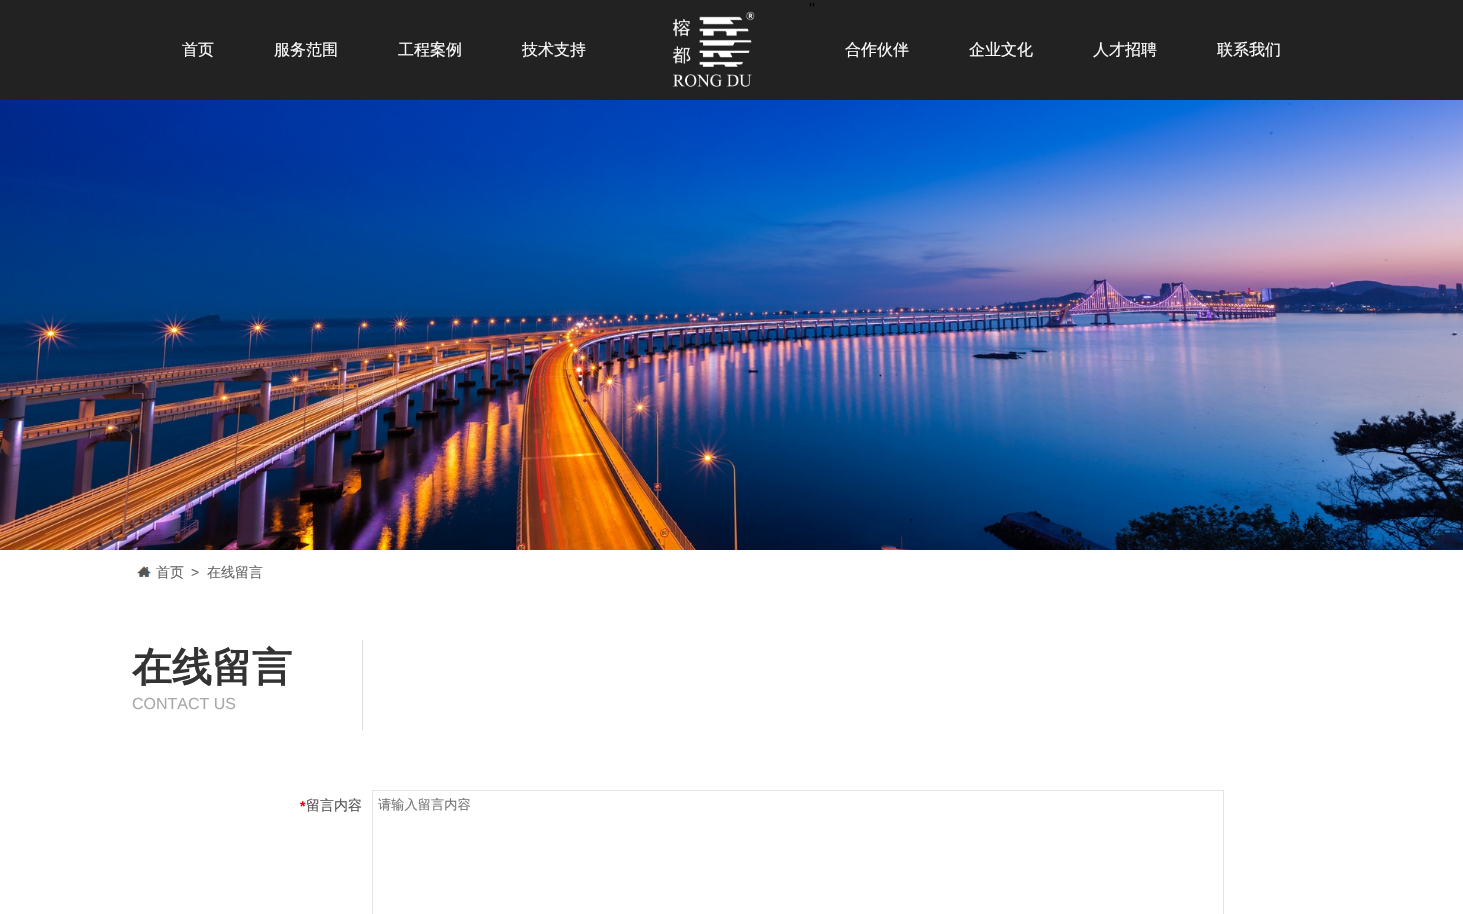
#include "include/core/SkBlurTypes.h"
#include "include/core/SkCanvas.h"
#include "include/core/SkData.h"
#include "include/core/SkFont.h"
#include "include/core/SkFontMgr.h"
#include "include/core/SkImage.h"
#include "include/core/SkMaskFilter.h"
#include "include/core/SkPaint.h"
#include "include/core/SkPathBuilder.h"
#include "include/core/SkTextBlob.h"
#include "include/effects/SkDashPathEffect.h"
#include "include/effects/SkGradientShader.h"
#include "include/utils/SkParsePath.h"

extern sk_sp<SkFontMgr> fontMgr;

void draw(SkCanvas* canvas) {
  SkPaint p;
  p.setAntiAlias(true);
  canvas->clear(SK_ColorWHITE);
  p.setColor(SkColorSetRGB(34, 34, 34));
  canvas->drawRect(SkRect::MakeLTRB(0, 0, 1463, 100), p);
  canvas->drawImageRect(SkImages::DeferredFromEncodedData(SkData::MakeFromFileName("images/1.png")), SkRect::MakeLTRB(672, 11, 755, 87), SkSamplingOptions());
  canvas->drawImageRect(SkImages::DeferredFromEncodedData(SkData::MakeFromFileName("images/2.png")), SkRect::MakeLTRB(0, 100, 1463, 550), SkSamplingOptions());
  canvas->drawImageRect(SkImages::DeferredFromEncodedData(SkData::MakeFromFileName("images/3.png")), SkRect::MakeLTRB(137, 566, 151, 577), SkSamplingOptions());
  p.setColor(SkColorSetRGB(219, 219, 219));
  canvas->drawRect(SkRect::MakeLTRB(362, 640, 363, 730), p);
  p.setStyle(SkPaint::kStroke_Style);
  p.setStrokeWidth(1);
  p.setColor(SkColorSetRGB(228, 228, 228));
  canvas->drawRect(SkRect::MakeLTRB(372.5f, 790.5f, 1223.5f, 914.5f), p);
  SkFont font1(fontMgr->matchFamilyStyle("Liberation Sans", SkFontStyle::Normal()), 16);
  font1.setSubpixel(true);
  p.setStyle(SkPaint::kFill_Style);
  p.setColor(SK_ColorBLACK);
  canvas->drawString("''", 809, 14, font1, p);
  SkFont font2(fontMgr->matchFamilyStyle("WenQuanYi Zen Hei", SkFontStyle(500, SkFontStyle::kNormal_Width, SkFontStyle::kUpright_Slant)), 16);
  font2.setSubpixel(true);
  p.setColor(SK_ColorWHITE);
  canvas->drawString("首页", 182, 55, font2, p);
  canvas->drawString("服务范围", 274, 55, font2, p);
  canvas->drawString("工程案例", 398, 55, font2, p);
  canvas->drawString("技术支持", 522, 55, font2, p);
  canvas->drawString("合作伙伴", 845, 55, font2, p);
  canvas->drawString("企业文化", 969, 55, font2, p);
  canvas->drawString("人才招聘", 1093, 55, font2, p);
  canvas->drawString("联系我们", 1217, 55, font2, p);
  SkFont font3(fontMgr->matchFamilyStyle("WenQuanYi Zen Hei", SkFontStyle(500, SkFontStyle::kNormal_Width, SkFontStyle::kUpright_Slant)), 14);
  font3.setSubpixel(true);
  p.setColor(SkColorSetRGB(102, 102, 102));
  canvas->drawString("首页", 156, 577, font3, p);
  SkFont font4(fontMgr->matchFamilyStyle("Liberation Sans", SkFontStyle::Normal()), 14);
  font4.setSubpixel(true);
  canvas->drawString(">", 191, 577, font4, p);
  canvas->drawString("在线留言", 207, 577, font3, p);
  SkFont font5(fontMgr->matchFamilyStyle("WenQuanYi Zen Hei", SkFontStyle::Bold()), 40);
  font5.setSubpixel(true);
  p.setColor(SkColorSetRGB(51, 51, 51));
  canvas->drawString("在线留言", 132, 681, font5, p);
  p.setColor(SkColorSetRGB(169, 169, 169));
  canvas->drawString("CONTACT US", 132, 709, font1, p);
  SkFont font6(fontMgr->matchFamilyStyle("Liberation Sans", SkFontStyle::Bold()), 14);
  font6.setSubpixel(true);
  p.setColor(SkColorSetRGB(235, 0, 18));
  canvas->drawString("*", 300, 811, font6, p);
  p.setColor(SkColorSetRGB(85, 85, 85));
  canvas->drawString("留言内容", 306, 810, font3, p);
  SkFont font7(fontMgr->matchFamilyStyle("WenQuanYi Zen Hei", SkFontStyle(500, SkFontStyle::kNormal_Width, SkFontStyle::kUpright_Slant)), 13.25f);
  font7.setSubpixel(true);
  p.setColor(SkColorSetRGB(117, 117, 117));
  canvas->drawString("请输入留言内容", 378, 809, font7, p);
}
